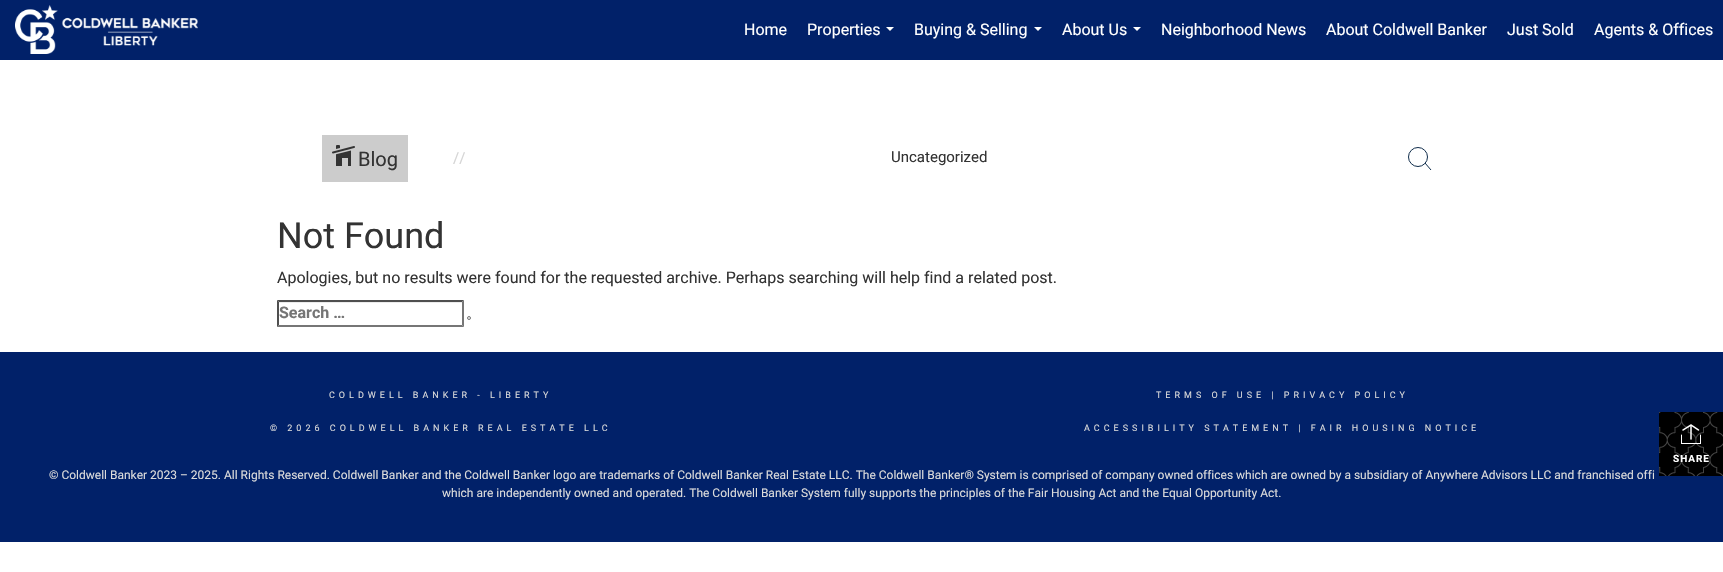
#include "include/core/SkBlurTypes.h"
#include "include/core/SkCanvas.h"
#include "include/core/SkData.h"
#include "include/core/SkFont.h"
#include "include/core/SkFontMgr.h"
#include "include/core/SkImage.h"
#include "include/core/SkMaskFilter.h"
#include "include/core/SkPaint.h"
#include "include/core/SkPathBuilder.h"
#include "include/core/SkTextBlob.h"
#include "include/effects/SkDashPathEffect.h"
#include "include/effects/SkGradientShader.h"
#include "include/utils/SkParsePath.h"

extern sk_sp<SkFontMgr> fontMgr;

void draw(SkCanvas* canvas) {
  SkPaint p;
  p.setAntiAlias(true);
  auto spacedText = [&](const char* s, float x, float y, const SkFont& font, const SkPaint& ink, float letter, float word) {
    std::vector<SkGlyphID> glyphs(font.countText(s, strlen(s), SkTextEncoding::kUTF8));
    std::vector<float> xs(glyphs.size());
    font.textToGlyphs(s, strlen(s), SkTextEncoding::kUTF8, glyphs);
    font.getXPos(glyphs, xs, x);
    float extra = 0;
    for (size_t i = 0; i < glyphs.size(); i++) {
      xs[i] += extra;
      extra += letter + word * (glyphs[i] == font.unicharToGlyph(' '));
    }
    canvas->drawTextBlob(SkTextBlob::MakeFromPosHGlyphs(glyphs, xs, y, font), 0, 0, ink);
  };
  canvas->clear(SK_ColorWHITE);
  p.setColor(SkColorSetRGB(1, 33, 105));
  canvas->drawRect(SkRect::MakeLTRB(0, 0, 1723, 60), p);
  canvas->drawImageRect(SkImages::DeferredFromEncodedData(SkData::MakeFromFileName("images/1.png")), SkRect::MakeLTRB(15, 5, 198, 54), SkSamplingOptions());
  p.setColor(SK_ColorWHITE);
  canvas->drawPath(SkPathBuilder().moveTo(886, 27).lineTo(894, 27).lineTo(890, 31).close().detach(), p);
  canvas->drawPath(SkPathBuilder().moveTo(1034, 27).lineTo(1042, 27).lineTo(1038, 31).close().detach(), p);
  canvas->drawPath(SkPathBuilder().moveTo(1133, 27).lineTo(1141, 27).lineTo(1137, 31).close().detach(), p);
  p.setColor(SkColorSetRGB(204, 204, 204));
  canvas->drawRect(SkRect::MakeLTRB(322, 135, 408, 182), p);
  canvas->drawImageRect(SkImages::DeferredFromEncodedData(SkData::MakeFromFileName("images/2.png")), SkRect::MakeLTRB(332, 145, 355, 166), SkSamplingOptions());
  p.setStyle(SkPaint::kStroke_Style);
  p.setStrokeWidth(1);
  p.setColor(SkColorSetRGB(14, 43, 74));
  canvas->drawCircle(1418, 157, 9.5f, p);
  canvas->drawPath(SkPathBuilder().moveTo(1425, 163).lineTo(1431, 170).detach(), p);
  p.setStyle(SkPaint::kFill_Style);
  p.setColor(SkColorSetRGB(236, 236, 236));
  canvas->drawRect(SkRect::MakeLTRB(279, 302, 462, 303), p);
  p.setColor(SkColorSetRGB(79, 79, 79));
  canvas->drawPath(SkPathBuilder().moveTo(277, 300).lineTo(464, 300).lineTo(462, 302).lineTo(279, 302).close().detach(), p);
  p.setColor(SkColorSetRGB(118, 118, 118));
  canvas->drawPath(SkPathBuilder().moveTo(464, 300).lineTo(464, 327).lineTo(462, 325).lineTo(462, 302).close().detach(), p);
  canvas->drawPath(SkPathBuilder().moveTo(464, 327).lineTo(277, 327).lineTo(279, 325).lineTo(462, 325).close().detach(), p);
  p.setColor(SkColorSetRGB(79, 79, 79));
  canvas->drawPath(SkPathBuilder().moveTo(277, 327).lineTo(277, 300).lineTo(279, 302).lineTo(279, 325).close().detach(), p);
  p.setColor(SkColorSetRGB(239, 239, 239));
  canvas->drawCircle(469, 318, 1.5f, p);
  p.setStyle(SkPaint::kStroke_Style);
  p.setColor(SkColorSetRGB(118, 118, 118));
  canvas->drawCircle(469, 318, 1.5f, p);
  p.setStyle(SkPaint::kFill_Style);
  p.setColor(SkColorSetRGB(1, 33, 105));
  canvas->drawRect(SkRect::MakeLTRB(0, 352, 1723, 542), p);
  canvas->drawImageRect(SkImages::DeferredFromEncodedData(SkData::MakeFromFileName("images/3.png")), SkRect::MakeLTRB(1659, 412, 1723, 476), SkSamplingOptions());
  canvas->drawImageRect(SkImages::DeferredFromEncodedData(SkData::MakeFromFileName("images/4.png")), SkRect::MakeLTRB(1681, 424, 1701, 444), SkSamplingOptions());
  SkFont font1(fontMgr->matchFamilyStyle("Roboto", SkFontStyle::Normal()), 16);
  font1.setSubpixel(true);
  p.setColor(SK_ColorWHITE);
  canvas->drawString("Home", 744, 35, font1, p);
  canvas->drawString("Properties", 807, 35, font1, p);
  canvas->drawString("Buying & Selling", 914, 35, font1, p);
  canvas->drawString("About Us", 1062, 35, font1, p);
  canvas->drawString("Neighborhood News", 1161, 35, font1, p);
  canvas->drawString("About Coldwell Banker", 1326, 35, font1, p);
  canvas->drawString("Just Sold", 1507, 35, font1, p);
  canvas->drawString("Agents & Offices", 1594, 35, font1, p);
  SkFont font2(fontMgr->matchFamilyStyle("Roboto", SkFontStyle::Normal()), 20);
  font2.setSubpixel(true);
  p.setColor(SkColorSetRGB(51, 51, 51));
  canvas->drawString("Blog", 358, 166, font2, p);
  SkFont font3(fontMgr->matchFamilyStyle("Roboto", SkFontStyle::Normal()), 15);
  font3.setSubpixel(true);
  p.setColor(SkColorSetRGB(213, 213, 213));
  canvas->drawString("//", 453, 163, font3, p);
  p.setColor(SkColorSetRGB(51, 51, 51));
  canvas->drawString("Uncategorized", 891, 162, font3, p);
  SkFont font4(fontMgr->matchFamilyStyle("Roboto", SkFontStyle::Normal()), 36);
  font4.setSubpixel(true);
  canvas->drawString("Not Found", 277, 248, font4, p);
  canvas->drawString("Apologies, but no results were found for the requested archive. Perhaps searching will help find a related post.", 277, 283, font1, p);
  SkFont font5(fontMgr->matchFamilyStyle("Roboto", SkFontStyle::Bold()), 16);
  font5.setSubpixel(true);
  p.setColor(SkColorSetRGB(117, 117, 117));
  canvas->drawString("Search …", 279, 318, font5, p);
  SkFont font6(fontMgr->matchFamilyStyle("Roboto", SkFontStyle::Bold()), 10);
  font6.setSubpixel(true);
  p.setColor(SK_ColorWHITE);
  spacedText("SHARE", 1673, 462, font6, p, 1, 0);
  SkFont font7(fontMgr->matchFamilyStyle("Roboto", SkFontStyle::Normal()), 9);
  font7.setSubpixel(true);
  p.setColor(SkColorSetRGB(219, 219, 219));
  spacedText("COLDWELL BANKER - LIBERTY", 329, 398, font7, p, 4, 0);
  spacedText("© 2026 COLDWELL BANKER REAL ESTATE LLC", 270, 431, font7, p, 4, 0);
  spacedText("TERMS OF USE | PRIVACY POLICY", 1156, 398, font7, p, 4, 0);
  spacedText("ACCESSIBILITY STATEMENT | FAIR HOUSING NOTICE", 1084, 431, font7, p, 4, 0);
  SkFont font8(fontMgr->matchFamilyStyle("Roboto", SkFontStyle::Normal()), 12);
  font8.setSubpixel(true);
  canvas->drawString("© Coldwell Banker 2023 – 2025. All Rights Reserved. Coldwell Banker and the Coldwell Banker logo are trademarks of Coldwell Banker Real Estate LLC. The Coldwell Banker® System is comprised of company owned offices which are owned by a subsidiary of Anywhere Advisors LLC and franchised offi", 49, 479, font8, p);
  canvas->drawString("which are independently owned and operated. The Coldwell Banker System fully supports the principles of the Fair Housing Act and the Equal Opportunity Act.", 442, 497, font8, p);
}
